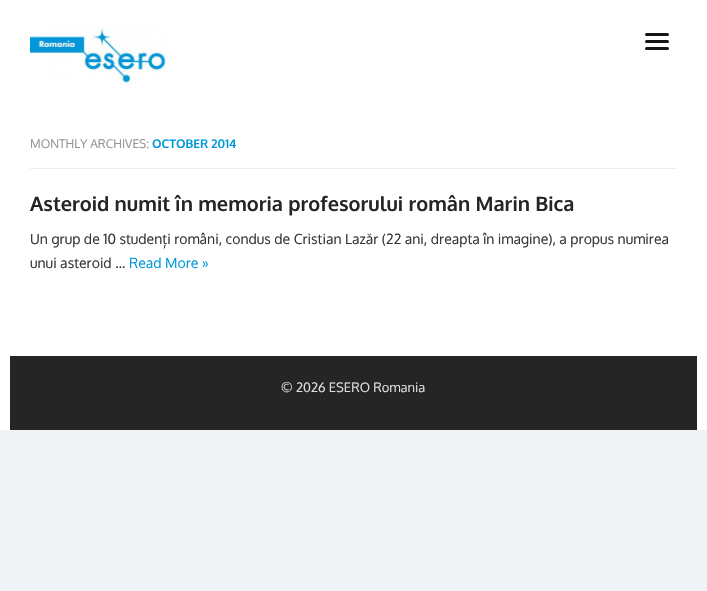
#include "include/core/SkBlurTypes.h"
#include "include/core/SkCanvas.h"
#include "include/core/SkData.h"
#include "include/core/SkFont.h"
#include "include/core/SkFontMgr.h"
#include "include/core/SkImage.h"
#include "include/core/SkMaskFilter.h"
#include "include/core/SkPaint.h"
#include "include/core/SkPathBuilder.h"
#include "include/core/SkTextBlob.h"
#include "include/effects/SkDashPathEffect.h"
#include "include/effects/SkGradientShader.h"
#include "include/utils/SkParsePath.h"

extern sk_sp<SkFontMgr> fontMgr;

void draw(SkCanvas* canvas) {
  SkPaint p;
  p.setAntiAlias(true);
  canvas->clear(SkColorSetRGB(240, 243, 245));
  p.setColor(SK_ColorWHITE);
  canvas->drawRect(SkRect::MakeLTRB(0, 0, 707, 430), p);
  canvas->drawImageRect(SkImages::DeferredFromEncodedData(SkData::MakeFromFileName("images/1.png")), SkRect::MakeLTRB(30, 26, 166, 85), SkSamplingOptions());
  p.setColor(SkColorSetRGB(21, 21, 21));
  canvas->drawRoundRect(SkRect::MakeLTRB(645, 40, 669, 43), 1.5f, 1.5f, p);
  canvas->drawRoundRect(SkRect::MakeLTRB(645, 33, 669, 36), 1.5f, 1.5f, p);
  canvas->drawRoundRect(SkRect::MakeLTRB(645, 47, 669, 50), 1.5f, 1.5f, p);
  p.setColor(SkColorSetRGB(238, 238, 238));
  canvas->drawRect(SkRect::MakeLTRB(30, 168, 677, 169), p);
  p.setColor(SkColorSetRGB(37, 37, 37));
  canvas->drawRect(SkRect::MakeLTRB(10, 356, 697, 430), p);
  SkFont font1(fontMgr->matchFamilyStyle("Oxygen", SkFontStyle::Normal()), 12);
  font1.setSubpixel(true);
  p.setColor(SkColorSetRGB(149, 149, 149));
  canvas->drawString("MONTHLY ARCHIVES:", 30, 148, font1, p);
  SkFont font2(fontMgr->matchFamilyStyle("Oxygen", SkFontStyle::Bold()), 12);
  font2.setSubpixel(true);
  p.setColor(SkColorSetRGB(0, 152, 219));
  canvas->drawString("OCTOBER 2014", 152, 148, font2, p);
  SkFont font3(fontMgr->matchFamilyStyle("Oxygen", SkFontStyle::Bold()), 20);
  font3.setSubpixel(true);
  p.setColor(SkColorSetRGB(37, 37, 37));
  canvas->drawString("Asteroid numit în memoria profesorului român Marin Bica", 30, 211, font3, p);
  SkFont font4(fontMgr->matchFamilyStyle("Oxygen", SkFontStyle::Normal()), 14);
  font4.setSubpixel(true);
  p.setColor(SkColorSetRGB(53, 53, 53));
  canvas->drawString("Un grup de 10 studenți români, condus de Cristian Lazăr (22 ani, dreapta în imagine), a propus numirea", 30, 244, font4, p);
  canvas->drawString("unui asteroid …", 30, 268, font4, p);
  p.setColor(SkColorSetRGB(0, 152, 219));
  canvas->drawString("Read More »", 129, 268, font4, p);
  SkFont font5(fontMgr->matchFamilyStyle("Oxygen", SkFontStyle::Normal()), 13);
  font5.setSubpixel(true);
  p.setColor(SkColorSetRGB(222, 222, 222));
  canvas->drawString("© 2026 ESERO Romania", 281, 392, font5, p);
}
